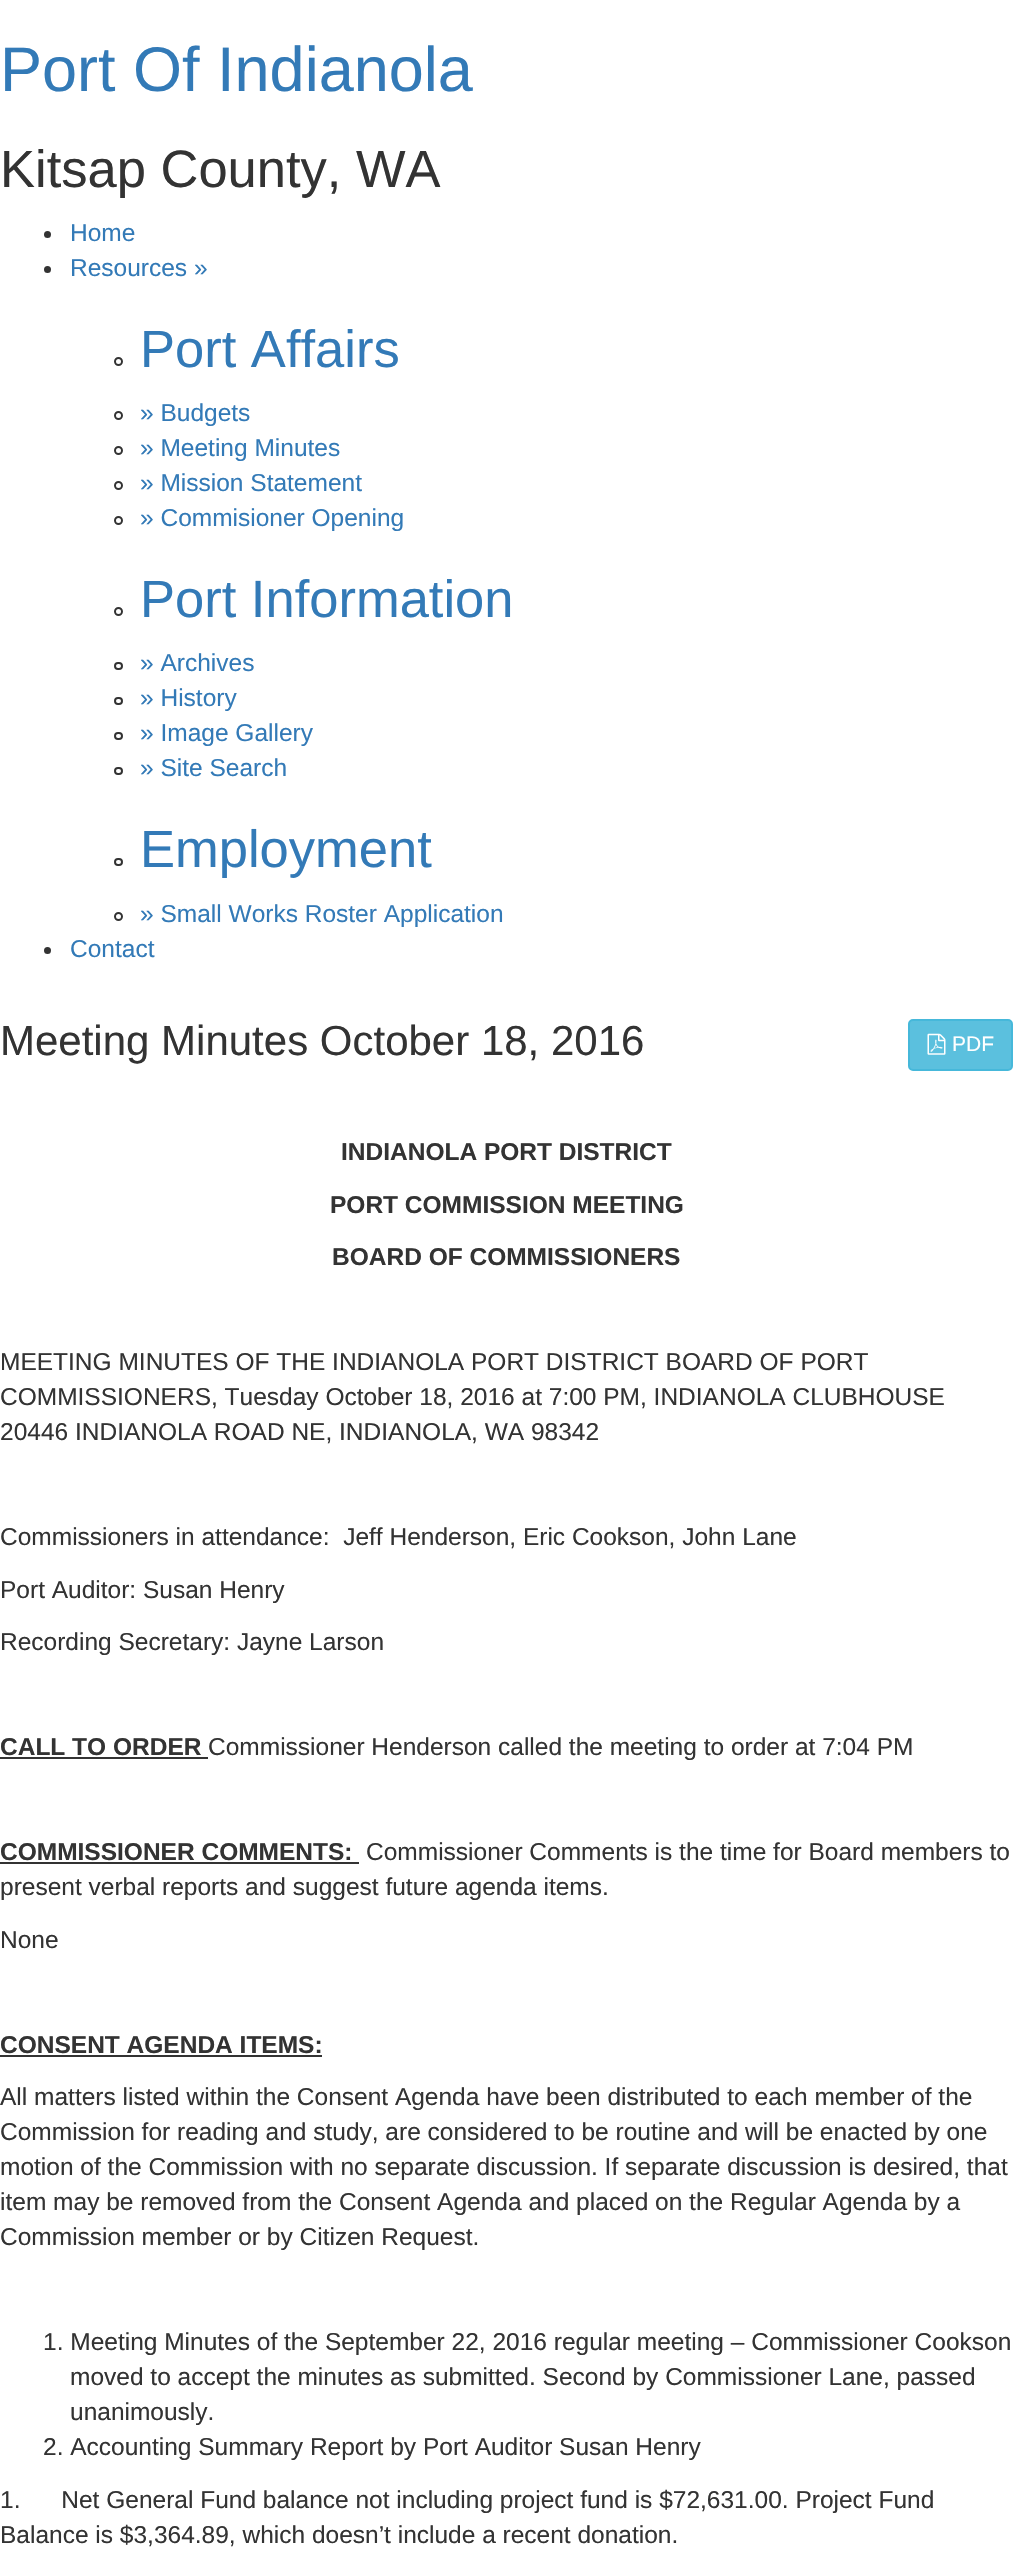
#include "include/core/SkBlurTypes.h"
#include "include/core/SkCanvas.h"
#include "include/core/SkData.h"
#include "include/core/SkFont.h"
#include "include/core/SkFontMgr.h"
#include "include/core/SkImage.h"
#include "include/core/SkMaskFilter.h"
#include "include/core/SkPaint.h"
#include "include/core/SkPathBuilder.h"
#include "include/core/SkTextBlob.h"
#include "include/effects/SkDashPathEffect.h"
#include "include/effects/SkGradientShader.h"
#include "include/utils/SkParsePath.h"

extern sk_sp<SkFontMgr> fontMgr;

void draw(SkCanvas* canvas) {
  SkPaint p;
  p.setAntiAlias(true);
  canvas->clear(SK_ColorWHITE);
  p.setColor(SkColorSetRGB(51, 51, 51));
  canvas->drawCircle(47.5f, 234.5f, 3.5f, p);
  canvas->drawCircle(47.5f, 269.5f, 3.5f, p);
  p.setStyle(SkPaint::kStroke_Style);
  p.setStrokeWidth(2);
  canvas->drawCircle(118.5f, 361.5f, 3.5f, p);
  canvas->drawCircle(118.5f, 415.5f, 3.5f, p);
  canvas->drawCircle(118.5f, 450.5f, 3.5f, p);
  canvas->drawCircle(118.5f, 485.5f, 3.5f, p);
  canvas->drawCircle(118.5f, 520.5f, 3.5f, p);
  canvas->drawCircle(118.5f, 611.5f, 3.5f, p);
  canvas->drawRoundRect(SkRect::MakeLTRB(115, 663, 122, 669), 3, 3, p);
  canvas->drawRoundRect(SkRect::MakeLTRB(115, 698, 122, 704), 3, 3, p);
  canvas->drawRoundRect(SkRect::MakeLTRB(115, 733, 122, 739), 3, 3, p);
  canvas->drawRoundRect(SkRect::MakeLTRB(115, 768, 122, 774), 3, 3, p);
  canvas->drawRoundRect(SkRect::MakeLTRB(115, 859, 122, 865), 3, 3, p);
  canvas->drawCircle(118.5f, 916.5f, 3.5f, p);
  p.setStyle(SkPaint::kFill_Style);
  canvas->drawCircle(47.5f, 950.5f, 3.5f, p);
  p.setColor(SkColorSetRGB(91, 192, 222));
  canvas->drawRoundRect(SkRect::MakeLTRB(909, 1020, 1012, 1070), 4, 4, p);
  p.setStyle(SkPaint::kStroke_Style);
  p.setColor(SkColorSetRGB(70, 184, 218));
  canvas->drawRoundRect(SkRect::MakeLTRB(909, 1020, 1012, 1070), 4, 4, p);
  canvas->drawImageRect(SkImages::DeferredFromEncodedData(SkData::MakeFromFileName("images/1.png")), SkRect::MakeLTRB(927, 1033, 946, 1055), SkSamplingOptions());
  p.setStyle(SkPaint::kFill_Style);
  p.setColor(SkColorSetRGB(51, 51, 51));
  canvas->drawRect(SkRect::MakeLTRB(0, 1757, 208, 1759), p);
  canvas->drawRect(SkRect::MakeLTRB(0, 1862, 359, 1864), p);
  canvas->drawRect(SkRect::MakeLTRB(0, 2055, 322, 2057), p);
  SkFont font1(fontMgr->matchFamilyStyle("Liberation Sans", SkFontStyle::Normal()), 63);
  font1.setSubpixel(true);
  p.setColor(SkColorSetRGB(51, 122, 183));
  canvas->drawString("Port Of Indianola", 0, 91, font1, p);
  SkFont font2(fontMgr->matchFamilyStyle("Liberation Sans", SkFontStyle::Normal()), 52.5f);
  font2.setSubpixel(true);
  p.setColor(SkColorSetRGB(51, 51, 51));
  canvas->drawString("Kitsap County, WA", 0, 187, font2, p);
  SkFont font3(fontMgr->matchFamilyStyle("Liberation Sans", SkFontStyle::Normal()), 24.5f);
  font3.setSubpixel(true);
  p.setColor(SkColorSetRGB(51, 122, 183));
  canvas->drawString("Home", 70, 241, font3, p);
  canvas->drawString("Resources »", 70, 276, font3, p);
  canvas->drawString("Port Affairs", 140, 367, font2, p);
  canvas->drawString("» Budgets", 140, 421, font3, p);
  canvas->drawString("» Meeting Minutes", 140, 456, font3, p);
  canvas->drawString("» Mission Statement", 140, 491, font3, p);
  canvas->drawString("» Commisioner Opening", 140, 526, font3, p);
  canvas->drawString("Port Information", 140, 617, font2, p);
  canvas->drawString("» Archives", 140, 671, font3, p);
  canvas->drawString("» History", 140, 706, font3, p);
  canvas->drawString("» Image Gallery", 140, 741, font3, p);
  canvas->drawString("» Site Search", 140, 776, font3, p);
  canvas->drawString("Employment", 140, 867, font2, p);
  canvas->drawString("» Small Works Roster Application", 140, 922, font3, p);
  canvas->drawString("Contact", 70, 957, font3, p);
  SkFont font4(fontMgr->matchFamilyStyle("Liberation Sans", SkFontStyle::Normal()), 42);
  font4.setSubpixel(true);
  p.setColor(SkColorSetRGB(51, 51, 51));
  canvas->drawString("Meeting Minutes October 18, 2016", 0, 1055, font4, p);
  SkFont font5(fontMgr->matchFamilyStyle("Liberation Sans", SkFontStyle::Normal()), 21);
  font5.setSubpixel(true);
  p.setColor(SK_ColorWHITE);
  canvas->drawString("PDF", 952, 1051, font5, p);
  SkFont font6(fontMgr->matchFamilyStyle("Liberation Sans", SkFontStyle::Bold()), 24.5f);
  font6.setSubpixel(true);
  p.setColor(SkColorSetRGB(51, 51, 51));
  canvas->drawString("INDIANOLA PORT DISTRICT", 341, 1160, font6, p);
  canvas->drawString("PORT COMMISSION MEETING", 330, 1213, font6, p);
  canvas->drawString("BOARD OF COMMISSIONERS", 332, 1265, font6, p);
  canvas->drawString("MEETING MINUTES OF THE INDIANOLA PORT DISTRICT BOARD OF PORT", 0, 1370, font3, p);
  canvas->drawString("COMMISSIONERS, Tuesday October 18, 2016 at 7:00 PM, INDIANOLA CLUBHOUSE", 0, 1405, font3, p);
  canvas->drawString("20446 INDIANOLA ROAD NE, INDIANOLA, WA 98342", 0, 1440, font3, p);
  canvas->drawString("Commissioners in attendance:  Jeff Henderson, Eric Cookson, John Lane", 0, 1545, font3, p);
  canvas->drawString("Port Auditor: Susan Henry", 0, 1598, font3, p);
  canvas->drawString("Recording Secretary: Jayne Larson", 0, 1650, font3, p);
  canvas->drawString("CALL TO ORDER", 0, 1755, font6, p);
  canvas->drawString("Commissioner Henderson called the meeting to order at 7:04 PM", 208, 1755, font3, p);
  canvas->drawString("COMMISSIONER COMMENTS:", 0, 1860, font6, p);
  canvas->drawString("Commissioner Comments is the time for Board members to", 366, 1860, font3, p);
  canvas->drawString("present verbal reports and suggest future agenda items.", 0, 1895, font3, p);
  canvas->drawString("None", 0, 1948, font3, p);
  canvas->drawString("CONSENT AGENDA ITEMS:", 0, 2053, font6, p);
  canvas->drawString("All matters listed within the Consent Agenda have been distributed to each member of the", 0, 2105, font3, p);
  canvas->drawString("Commission for reading and study, are considered to be routine and will be enacted by one", 0, 2140, font3, p);
  canvas->drawString("motion of the Commission with no separate discussion. If separate discussion is desired, that", 0, 2175, font3, p);
  canvas->drawString("item may be removed from the Consent Agenda and placed on the Regular Agenda by a", 0, 2210, font3, p);
  canvas->drawString("Commission member or by Citizen Request.", 0, 2245, font3, p);
  canvas->drawString("1. Meeting Minutes of the September 22, 2016 regular meeting – Commissioner Cookson", 43, 2350, font3, p);
  canvas->drawString("moved to accept the minutes as submitted. Second by Commissioner Lane, passed", 70, 2385, font3, p);
  canvas->drawString("unanimously.", 70, 2420, font3, p);
  canvas->drawString("2. Accounting Summary Report by Port Auditor Susan Henry", 43, 2455, font3, p);
  canvas->drawString("1.      Net General Fund balance not including project fund is $72,631.00. Project Fund", 0, 2508, font3, p);
  canvas->drawString("Balance is $3,364.89, which doesn’t include a recent donation.", 0, 2543, font3, p);
}
